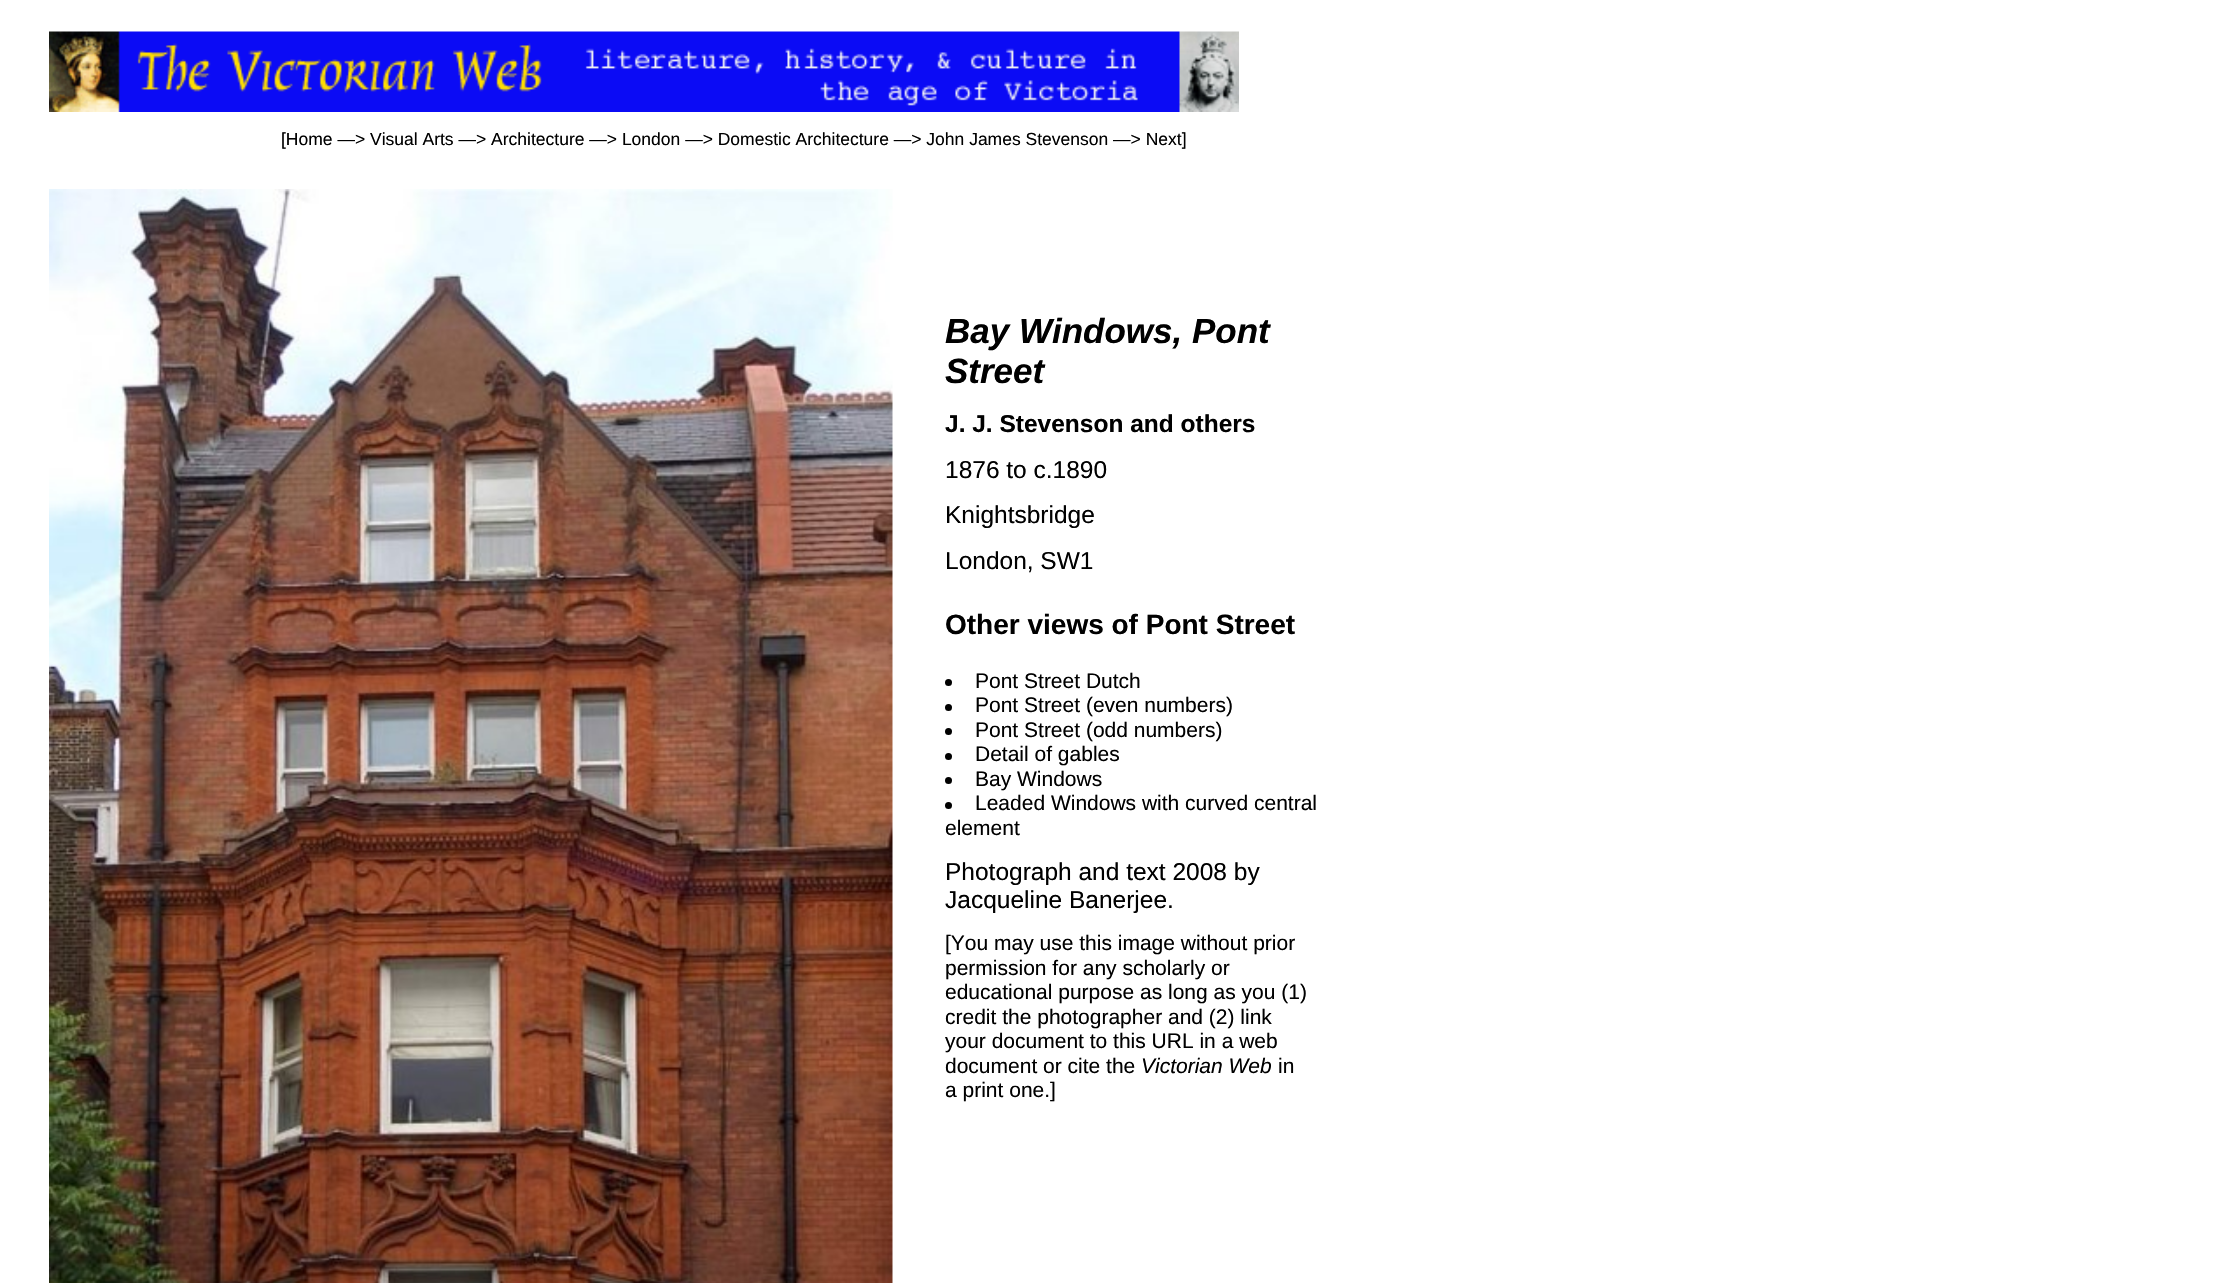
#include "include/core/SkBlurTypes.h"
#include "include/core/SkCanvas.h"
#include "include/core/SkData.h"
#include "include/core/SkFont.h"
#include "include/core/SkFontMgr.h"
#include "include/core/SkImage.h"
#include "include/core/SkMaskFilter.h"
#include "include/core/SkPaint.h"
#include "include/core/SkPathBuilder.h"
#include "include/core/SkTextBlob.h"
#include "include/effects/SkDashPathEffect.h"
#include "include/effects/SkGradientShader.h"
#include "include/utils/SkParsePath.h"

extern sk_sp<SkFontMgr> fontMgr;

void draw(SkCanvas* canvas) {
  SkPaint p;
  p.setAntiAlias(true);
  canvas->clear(SK_ColorWHITE);
  canvas->drawImageRect(SkImages::DeferredFromEncodedData(SkData::MakeFromFileName("images/1.png")), SkRect::MakeLTRB(49, 31, 1239, 112), SkSamplingOptions());
  canvas->drawImageRect(SkImages::DeferredFromEncodedData(SkData::MakeFromFileName("images/2.png")), SkRect::MakeLTRB(49, 189, 893, 1283), SkSamplingOptions());
  p.setColor(SK_ColorBLACK);
  canvas->drawCircle(948.5f, 682.5f, 3.5f, p);
  canvas->drawCircle(948.5f, 707.5f, 3.5f, p);
  canvas->drawCircle(948.5f, 731.5f, 3.5f, p);
  canvas->drawCircle(948.5f, 756.5f, 3.5f, p);
  canvas->drawCircle(948.5f, 780.5f, 3.5f, p);
  canvas->drawCircle(948.5f, 805.5f, 3.5f, p);
  SkFont font1(fontMgr->matchFamilyStyle("Liberation Sans", SkFontStyle::Normal()), 17.5f);
  font1.setSubpixel(true);
  canvas->drawString("[Home —> Visual Arts —> Architecture —> London —> Domestic Architecture —> John James Stevenson —> Next]", 281, 145, font1, p);
  SkFont font2(fontMgr->matchFamilyStyle("Liberation Sans", SkFontStyle::BoldItalic()), 35);
  font2.setSubpixel(true);
  canvas->drawString("Bay Windows, Pont", 945, 343, font2, p);
  canvas->drawString("Street", 945, 383, font2, p);
  SkFont font3(fontMgr->matchFamilyStyle("Liberation Sans", SkFontStyle::Bold()), 24.5f);
  font3.setSubpixel(true);
  canvas->drawString("J. J. Stevenson and others", 945, 432, font3, p);
  SkFont font4(fontMgr->matchFamilyStyle("Liberation Sans", SkFontStyle::Normal()), 24.5f);
  font4.setSubpixel(true);
  canvas->drawString("1876 to c.1890", 945, 478, font4, p);
  canvas->drawString("Knightsbridge", 945, 523, font4, p);
  canvas->drawString("London, SW1", 945, 569, font4, p);
  SkFont font5(fontMgr->matchFamilyStyle("Liberation Sans", SkFontStyle::Bold()), 28);
  font5.setSubpixel(true);
  canvas->drawString("Other views of Pont Street", 945, 634, font5, p);
  SkFont font6(fontMgr->matchFamilyStyle("Liberation Sans", SkFontStyle::Normal()), 21);
  font6.setSubpixel(true);
  canvas->drawString("Pont Street Dutch", 975, 688, font6, p);
  canvas->drawString("Pont Street (even numbers)", 975, 712, font6, p);
  canvas->drawString("Pont Street (odd numbers)", 975, 737, font6, p);
  canvas->drawString("Detail of gables", 975, 761, font6, p);
  canvas->drawString("Bay Windows", 975, 786, font6, p);
  canvas->drawString("Leaded Windows with curved central", 975, 810, font6, p);
  canvas->drawString("element", 945, 835, font6, p);
  canvas->drawString("Photograph and text 2008 by", 945, 880, font4, p);
  canvas->drawString("Jacqueline Banerjee.", 945, 908, font4, p);
  canvas->drawString("[You may use this image without prior", 945, 950, font6, p);
  canvas->drawString("permission for any scholarly or", 945, 975, font6, p);
  canvas->drawString("educational purpose as long as you (1)", 945, 999, font6, p);
  canvas->drawString("credit the photographer and (2) link", 945, 1024, font6, p);
  canvas->drawString("your document to this URL in a web", 945, 1048, font6, p);
  canvas->drawString("document or cite the", 945, 1073, font6, p);
  SkFont font7(fontMgr->matchFamilyStyle("Liberation Sans", SkFontStyle::Italic()), 21);
  font7.setSubpixel(true);
  canvas->drawString("Victorian Web", 1141, 1073, font7, p);
  canvas->drawString("in", 1278, 1073, font6, p);
  canvas->drawString("a print one.]", 945, 1097, font6, p);
}
